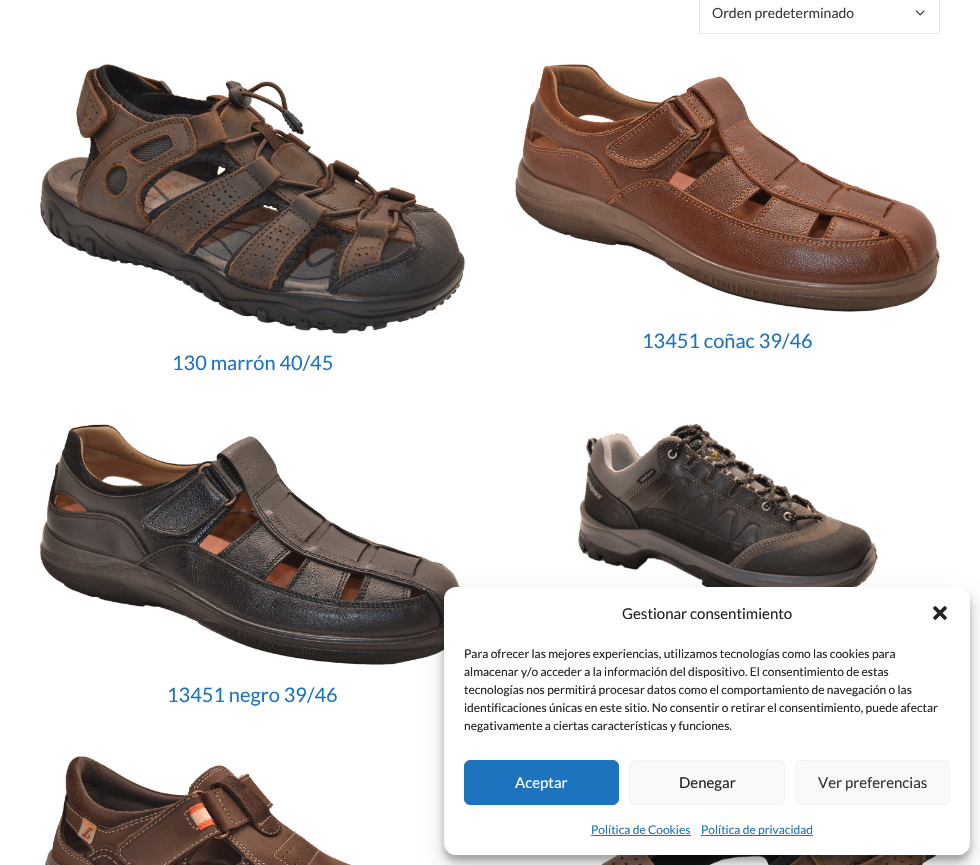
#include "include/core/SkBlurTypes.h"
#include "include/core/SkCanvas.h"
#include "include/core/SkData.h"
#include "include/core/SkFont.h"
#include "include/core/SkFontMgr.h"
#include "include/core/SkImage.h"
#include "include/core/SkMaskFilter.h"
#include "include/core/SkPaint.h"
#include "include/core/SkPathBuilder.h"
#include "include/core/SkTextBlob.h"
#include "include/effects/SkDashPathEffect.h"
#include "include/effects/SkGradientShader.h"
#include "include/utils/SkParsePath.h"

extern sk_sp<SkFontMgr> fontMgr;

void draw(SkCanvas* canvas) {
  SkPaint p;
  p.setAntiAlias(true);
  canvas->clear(SK_ColorWHITE);
  p.setStyle(SkPaint::kStroke_Style);
  p.setStrokeWidth(1);
  p.setColor(SkColorSetRGB(230, 230, 230));
  canvas->drawRect(SkRect::MakeLTRB(699.5f, -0.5f, 939.5f, 33.5f), p);
  canvas->drawImageRect(SkImages::DeferredFromEncodedData(SkData::MakeFromFileName("images/1.png")), SkRect::MakeLTRB(915, 10, 925, 16), SkSamplingOptions());
  canvas->drawImageRect(SkImages::DeferredFromEncodedData(SkData::MakeFromFileName("images/2.png")), SkRect::MakeLTRB(515, 64, 940, 312), SkSamplingOptions());
  canvas->drawImageRect(SkImages::DeferredFromEncodedData(SkData::MakeFromFileName("images/3.png")), SkRect::MakeLTRB(40, 64, 465, 334), SkSamplingOptions());
  canvas->drawImageRect(SkImages::DeferredFromEncodedData(SkData::MakeFromFileName("images/4.png")), SkRect::MakeLTRB(578, 424, 878, 587), SkSamplingOptions());
  canvas->drawImageRect(SkImages::DeferredFromEncodedData(SkData::MakeFromFileName("images/5.png")), SkRect::MakeLTRB(40, 424, 460, 665), SkSamplingOptions());
  canvas->drawImageRect(SkImages::DeferredFromEncodedData(SkData::MakeFromFileName("images/6.png")), SkRect::MakeLTRB(45, 756, 352, 865), SkSamplingOptions());
  canvas->drawImageRect(SkImages::DeferredFromEncodedData(SkData::MakeFromFileName("images/7.png")), SkRect::MakeLTRB(601, 855, 937, 865), SkSamplingOptions());
  p.setStyle(SkPaint::kFill_Style);
  p.setColor(SkColorSetARGB(59, 0, 0, 0));
  p.setMaskFilter(SkMaskFilter::MakeBlur(kNormal_SkBlurStyle, 3));
  canvas->drawRoundRect(SkRect::MakeLTRB(444, 593, 970, 861), 12, 12, p);
  p.setMaskFilter(nullptr);
  p.setColor(SkColorSetARGB(48, 0, 0, 0));
  p.setMaskFilter(SkMaskFilter::MakeBlur(kNormal_SkBlurStyle, 10));
  canvas->drawRoundRect(SkRect::MakeLTRB(444, 597, 970, 865), 12, 12, p);
  p.setMaskFilter(nullptr);
  p.setColor(SK_ColorWHITE);
  canvas->drawRoundRect(SkRect::MakeLTRB(444, 587, 970, 855), 12, 12, p);
  canvas->drawImageRect(SkImages::DeferredFromEncodedData(SkData::MakeFromFileName("images/8.png")), SkRect::MakeLTRB(933, 606, 947, 620), SkSamplingOptions());
  p.setColor(SkColorSetRGB(30, 115, 190));
  canvas->drawRoundRect(SkRect::MakeLTRB(464.5f, 760.5f, 618.5f, 804.5f), 5.5f, 5.5f, p);
  p.setStyle(SkPaint::kStroke_Style);
  canvas->drawRoundRect(SkRect::MakeLTRB(464.5f, 760.5f, 618.5f, 804.5f), 5.5f, 5.5f, p);
  p.setStyle(SkPaint::kFill_Style);
  p.setColor(SkColorSetRGB(249, 249, 249));
  canvas->drawRoundRect(SkRect::MakeLTRB(629.5f, 760.5f, 784.5f, 804.5f), 5.5f, 5.5f, p);
  p.setStyle(SkPaint::kStroke_Style);
  p.setColor(SkColorSetRGB(242, 242, 242));
  canvas->drawRoundRect(SkRect::MakeLTRB(629.5f, 760.5f, 784.5f, 804.5f), 5.5f, 5.5f, p);
  p.setStyle(SkPaint::kFill_Style);
  p.setColor(SkColorSetRGB(249, 249, 249));
  canvas->drawRoundRect(SkRect::MakeLTRB(795.5f, 760.5f, 949.5f, 804.5f), 5.5f, 5.5f, p);
  p.setStyle(SkPaint::kStroke_Style);
  p.setColor(SkColorSetRGB(242, 242, 242));
  canvas->drawRoundRect(SkRect::MakeLTRB(795.5f, 760.5f, 949.5f, 804.5f), 5.5f, 5.5f, p);
  p.setStyle(SkPaint::kFill_Style);
  p.setColor(SkColorSetRGB(30, 115, 190));
  canvas->drawRect(SkRect::MakeLTRB(591, 835, 691, 836), p);
  canvas->drawRect(SkRect::MakeLTRB(701, 835, 813, 836), p);
  SkFont font1(fontMgr->matchFamilyStyle("Lato", SkFontStyle::Normal()), 14);
  font1.setSubpixel(true);
  p.setColor(SkColorSetRGB(58, 58, 58));
  canvas->drawString("Orden predeterminado", 712, 18, font1, p);
  SkFont font2(fontMgr->matchFamilyStyle("Lato", SkFontStyle::Normal()), 20);
  font2.setSubpixel(true);
  p.setColor(SkColorSetRGB(30, 115, 190));
  canvas->drawString("13451 coñac 39/46", 642, 348, font2, p);
  canvas->drawString("130 marrón 40/45", 172, 370, font2, p);
  canvas->drawString("13451 negro 39/46", 167, 702, font2, p);
  SkFont font3(fontMgr->matchFamilyStyle("Lato", SkFontStyle::Normal()), 15);
  font3.setSubpixel(true);
  p.setColor(SkColorSetRGB(34, 34, 34));
  canvas->drawString("Gestionar consentimiento", 622, 619, font3, p);
  SkFont font4(fontMgr->matchFamilyStyle("Lato", SkFontStyle::Normal()), 12);
  font4.setSubpixel(true);
  canvas->drawString("Para ofrecer las mejores experiencias, utilizamos tecnologías como las cookies para", 464, 658, font4, p);
  canvas->drawString("almacenar y/o acceder a la información del dispositivo. El consentimiento de estas", 464, 676, font4, p);
  canvas->drawString("tecnologías nos permitirá procesar datos como el comportamiento de navegación o las", 464, 694, font4, p);
  canvas->drawString("identificaciones únicas en este sitio. No consentir o retirar el consentimiento, puede afectar", 464, 712, font4, p);
  canvas->drawString("negativamente a ciertas características y funciones.", 464, 730, font4, p);
  p.setColor(SK_ColorWHITE);
  canvas->drawString("Aceptar", 515, 788, font3, p);
  p.setColor(SkColorSetRGB(34, 34, 34));
  canvas->drawString("Denegar", 679, 788, font3, p);
  p.setColor(SkColorSetRGB(51, 51, 51));
  canvas->drawString("Ver preferencias", 818, 788, font3, p);
  p.setColor(SkColorSetRGB(30, 115, 190));
  canvas->drawString("Política de Cookies", 591, 834, font4, p);
  canvas->drawString("Política de privacidad", 701, 834, font4, p);
}
